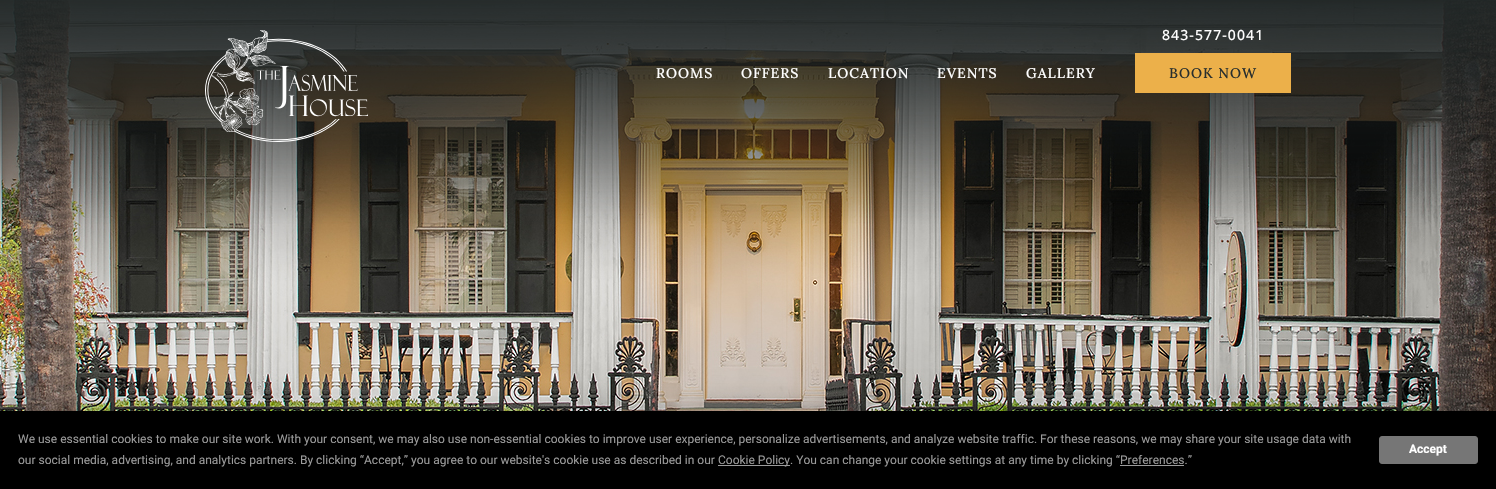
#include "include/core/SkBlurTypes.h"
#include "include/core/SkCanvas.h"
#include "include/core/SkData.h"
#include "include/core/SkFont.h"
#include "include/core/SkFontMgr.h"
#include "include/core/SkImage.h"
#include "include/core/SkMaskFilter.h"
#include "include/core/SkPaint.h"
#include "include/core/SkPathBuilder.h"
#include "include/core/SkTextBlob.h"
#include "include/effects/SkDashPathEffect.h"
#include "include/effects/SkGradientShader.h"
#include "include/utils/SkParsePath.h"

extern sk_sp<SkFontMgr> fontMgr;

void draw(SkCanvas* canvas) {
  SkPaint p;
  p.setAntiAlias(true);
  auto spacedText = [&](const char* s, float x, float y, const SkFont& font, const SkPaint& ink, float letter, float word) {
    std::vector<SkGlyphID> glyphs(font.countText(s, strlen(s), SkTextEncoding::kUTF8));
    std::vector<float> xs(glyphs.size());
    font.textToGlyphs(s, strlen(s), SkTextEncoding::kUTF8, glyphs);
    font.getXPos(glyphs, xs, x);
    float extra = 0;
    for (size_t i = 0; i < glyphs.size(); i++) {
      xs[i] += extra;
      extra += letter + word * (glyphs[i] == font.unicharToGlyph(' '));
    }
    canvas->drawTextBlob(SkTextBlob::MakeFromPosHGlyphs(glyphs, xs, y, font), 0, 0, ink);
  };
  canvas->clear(SK_ColorWHITE);
  canvas->drawImageRect(SkImages::DeferredFromEncodedData(SkData::MakeFromFileName("images/1.png")), SkRect::MakeLTRB(0, 0, 1496, 411), SkSamplingOptions());
  canvas->drawImageRect(SkImages::DeferredFromEncodedData(SkData::MakeFromFileName("images/2.png")), SkRect::MakeLTRB(205, 30, 368, 142), SkSamplingOptions());
  p.setColor(SkColorSetRGB(236, 176, 74));
  canvas->drawRect(SkRect::MakeLTRB(1135, 53, 1291, 93), p);
  p.setColor(SkColorSetARGB(64, 0, 0, 0));
  p.setMaskFilter(SkMaskFilter::MakeBlur(kNormal_SkBlurStyle, 17.5f));
  canvas->drawRect(SkRect::MakeLTRB(0, 411, 1496, 489), p);
  p.setMaskFilter(nullptr);
  p.setColor(SK_ColorBLACK);
  canvas->drawRect(SkRect::MakeLTRB(0, 411, 1496, 489), p);
  p.setColor(SkColorSetRGB(155, 155, 155));
  canvas->drawRect(SkRect::MakeLTRB(718, 465, 790, 466), p);
  canvas->drawRect(SkRect::MakeLTRB(1120, 465, 1184, 466), p);
  p.setColor(SkColorSetRGB(118, 118, 118));
  canvas->drawRoundRect(SkRect::MakeLTRB(1379.5f, 436.5f, 1477.5f, 463.5f), 2.5f, 2.5f, p);
  p.setStyle(SkPaint::kStroke_Style);
  p.setStrokeWidth(1);
  canvas->drawRoundRect(SkRect::MakeLTRB(1379.5f, 436.5f, 1477.5f, 463.5f), 2.5f, 2.5f, p);
  SkFont font1(fontMgr->matchFamilyStyle("Lora", SkFontStyle(500, SkFontStyle::kNormal_Width, SkFontStyle::kUpright_Slant)), 14);
  font1.setSubpixel(true);
  p.setStyle(SkPaint::kFill_Style);
  p.setColor(SK_ColorWHITE);
  spacedText("ROOMS", 656, 78, font1, p, 1, 0);
  spacedText("OFFERS", 741, 78, font1, p, 1, 0);
  spacedText("LOCATION", 828, 78, font1, p, 1, 0);
  spacedText("EVENTS", 937, 78, font1, p, 1, 0);
  spacedText("GALLERY", 1026, 78, font1, p, 1, 0);
  SkFont font2(fontMgr->matchFamilyStyle("Open Sans", SkFontStyle(500, SkFontStyle::kNormal_Width, SkFontStyle::kUpright_Slant)), 14);
  font2.setSubpixel(true);
  spacedText("843-577-0041", 1162, 40, font2, p, 1.1f, 0);
  p.setColor(SkColorSetRGB(41, 47, 45));
  spacedText("BOOK NOW", 1169, 78, font1, p, 1, 0);
  SkFont font3(fontMgr->matchFamilyStyle("Roboto", SkFontStyle::Normal()), 12);
  font3.setSubpixel(true);
  p.setColor(SkColorSetRGB(155, 155, 155));
  canvas->drawString("We use essential cookies to make our site work. With your consent, we may also use non-essential cookies to improve user experience, personalize advertisements, and analyze website traffic. For these reasons, we may share your site usage data with", 18, 443, font3, p);
  canvas->drawString("our social media, advertising, and analytics partners. By clicking “Accept,” you agree to our website's cookie use as described in our", 18, 464, font3, p);
  canvas->drawString("Cookie Policy. You can change your cookie settings at any time by clicking “Preferences.”", 718, 464, font3, p);
  SkFont font4(fontMgr->matchFamilyStyle("Roboto", SkFontStyle::Bold()), 12);
  font4.setSubpixel(true);
  p.setColor(SK_ColorWHITE);
  canvas->drawString("Accept", 1409, 453, font4, p);
}
